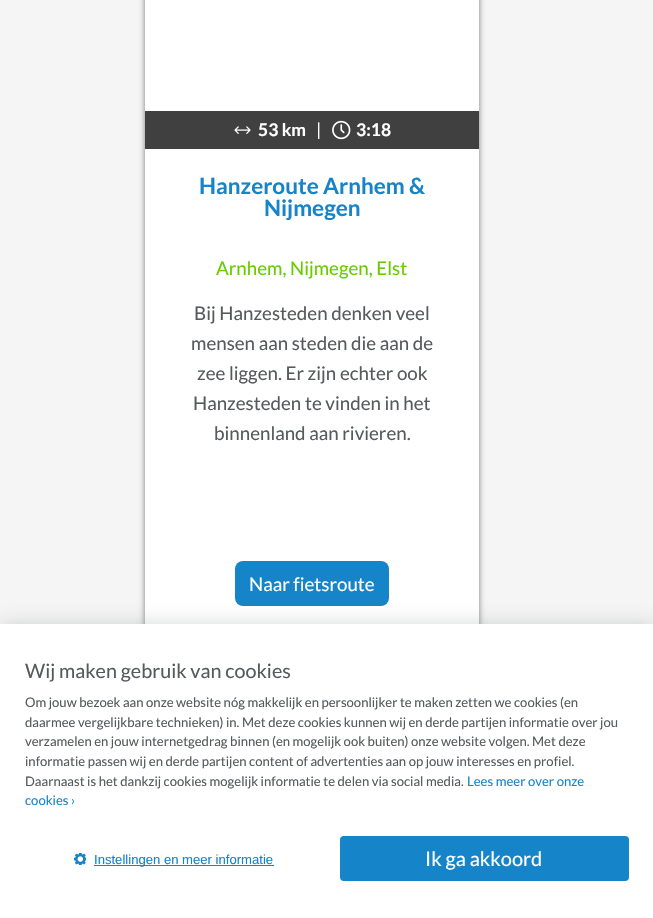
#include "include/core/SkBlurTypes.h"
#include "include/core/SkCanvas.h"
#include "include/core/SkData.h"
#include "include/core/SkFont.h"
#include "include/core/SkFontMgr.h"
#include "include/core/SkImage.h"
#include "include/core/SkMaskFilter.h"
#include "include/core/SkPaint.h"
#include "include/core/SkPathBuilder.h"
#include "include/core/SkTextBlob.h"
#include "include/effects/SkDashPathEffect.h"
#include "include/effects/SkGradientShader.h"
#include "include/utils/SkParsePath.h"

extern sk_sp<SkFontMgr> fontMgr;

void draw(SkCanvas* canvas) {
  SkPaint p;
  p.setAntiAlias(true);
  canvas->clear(SkColorSetRGB(245, 245, 245));
  p.setColor(SkColorSetARGB(128, 0, 0, 0));
  p.setMaskFilter(SkMaskFilter::MakeBlur(kNormal_SkBlurStyle, 3));
  canvas->drawRect(SkRect::MakeLTRB(145, -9, 479, 639), p);
  p.setMaskFilter(nullptr);
  p.setColor(SK_ColorWHITE);
  canvas->drawRect(SkRect::MakeLTRB(145, 0, 479, 624), p);
  p.setColor(SkColorSetRGB(64, 64, 64));
  canvas->drawRect(SkRect::MakeLTRB(145, 111, 479, 149), p);
  canvas->drawImageRect(SkImages::DeferredFromEncodedData(SkData::MakeFromFileName("images/1.png")), SkRect::MakeLTRB(234, 126, 251, 134), SkSamplingOptions());
  canvas->drawImageRect(SkImages::DeferredFromEncodedData(SkData::MakeFromFileName("images/2.png")), SkRect::MakeLTRB(332, 120, 351, 140), SkSamplingOptions());
  p.setColor(SkColorSetRGB(21, 132, 200));
  canvas->drawRoundRect(SkRect::MakeLTRB(235, 561, 389, 606), 8, 8, p);
  p.setColor(SkColorSetARGB(64, 86, 90, 92));
  p.setMaskFilter(SkMaskFilter::MakeBlur(kNormal_SkBlurStyle, 9.5f));
  canvas->drawRect(SkRect::MakeLTRB(0, 624, 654, 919), p);
  p.setMaskFilter(nullptr);
  p.setColor(SK_ColorWHITE);
  canvas->drawRect(SkRect::MakeLTRB(0, 624, 653, 918), p);
  canvas->drawImageRect(SkImages::DeferredFromEncodedData(SkData::MakeFromFileName("images/3.png")), SkRect::MakeLTRB(74, 853, 86, 865), SkSamplingOptions());
  p.setColor(SkColorSetRGB(21, 132, 200));
  canvas->drawRect(SkRect::MakeLTRB(94, 865, 274, 866), p);
  canvas->drawRoundRect(SkRect::MakeLTRB(340, 836, 629, 881), 4, 4, p);
  SkFont font1(fontMgr->matchFamilyStyle("Lato", SkFontStyle::Bold()), 17.5f);
  font1.setSubpixel(true);
  p.setColor(SK_ColorWHITE);
  canvas->drawString("53 km", 258, 136, font1, p);
  SkFont font2(fontMgr->matchFamilyStyle("Lato", SkFontStyle::Normal()), 17.5f);
  font2.setSubpixel(true);
  canvas->drawString("|", 316, 136, font2, p);
  canvas->drawString("3:18", 356, 136, font1, p);
  SkFont font3(fontMgr->matchFamilyStyle("Lato", SkFontStyle::Bold()), 22.5f);
  font3.setSubpixel(true);
  p.setColor(SkColorSetRGB(21, 132, 200));
  canvas->drawString("Hanzeroute Arnhem &", 199, 194, font3, p);
  canvas->drawString("Nijmegen", 264, 216, font3, p);
  SkFont font4(fontMgr->matchFamilyStyle("Lato", SkFontStyle::Normal()), 18.75f);
  font4.setSubpixel(true);
  p.setColor(SkColorSetRGB(102, 204, 0));
  canvas->drawString("Arnhem, Nijmegen, Elst", 216, 275, font4, p);
  p.setColor(SkColorSetRGB(86, 90, 92));
  canvas->drawString("Bij Hanzesteden denken veel", 194, 320, font4, p);
  canvas->drawString("mensen aan steden die aan de", 191, 350, font4, p);
  canvas->drawString("zee liggen. Er zijn echter ook", 197, 380, font4, p);
  canvas->drawString("Hanzesteden te vinden in het", 193, 410, font4, p);
  canvas->drawString("binnenland aan rivieren.", 214, 440, font4, p);
  p.setColor(SK_ColorWHITE);
  canvas->drawString("Naar fietsroute", 249, 591, font4, p);
  SkFont font5(fontMgr->matchFamilyStyle("Lato", SkFontStyle::Normal()), 19.75f);
  font5.setSubpixel(true);
  p.setColor(SkColorSetRGB(86, 90, 92));
  canvas->drawString("Wij maken gebruik van cookies", 25, 678, font5, p);
  SkFont font6(fontMgr->matchFamilyStyle("Lato", SkFontStyle::Normal()), 13.1f);
  font6.setSubpixel(true);
  canvas->drawString("Om jouw bezoek aan onze website nóg makkelijk en persoonlijker te maken zetten we cookies (en", 25, 707, font6, p);
  canvas->drawString("daarmee vergelijkbare technieken) in. Met deze cookies kunnen wij en derde partijen informatie over jou", 25, 727, font6, p);
  canvas->drawString("verzamelen en jouw internetgedrag binnen (en mogelijk ook buiten) onze website volgen. Met deze", 25, 746, font6, p);
  canvas->drawString("informatie passen wij en derde partijen content of advertenties aan op jouw interesses en profiel.", 25, 766, font6, p);
  canvas->drawString("Daarnaast is het dankzij cookies mogelijk informatie te delen via social media.", 25, 786, font6, p);
  p.setColor(SkColorSetRGB(21, 132, 200));
  canvas->drawString("Lees meer over onze", 467, 786, font6, p);
  canvas->drawString("cookies ›", 25, 805, font6, p);
  SkFont font7(fontMgr->matchFamilyStyle("Liberation Sans", SkFontStyle::Normal()), 13.1f);
  font7.setSubpixel(true);
  canvas->drawString("Instellingen en meer informatie", 94, 864, font7, p);
  SkFont font8(fontMgr->matchFamilyStyle("Lato", SkFontStyle::Normal()), 20);
  font8.setSubpixel(true);
  p.setColor(SK_ColorWHITE);
  canvas->drawString("Ik ga akkoord", 425, 866, font8, p);
}
